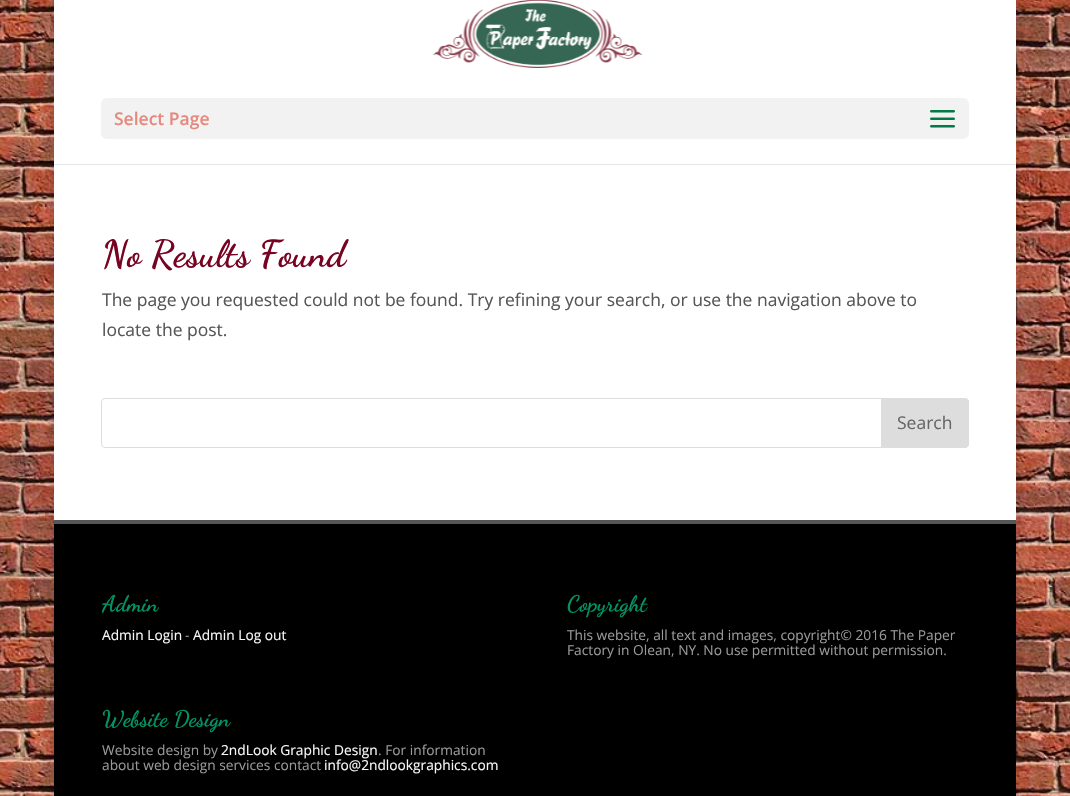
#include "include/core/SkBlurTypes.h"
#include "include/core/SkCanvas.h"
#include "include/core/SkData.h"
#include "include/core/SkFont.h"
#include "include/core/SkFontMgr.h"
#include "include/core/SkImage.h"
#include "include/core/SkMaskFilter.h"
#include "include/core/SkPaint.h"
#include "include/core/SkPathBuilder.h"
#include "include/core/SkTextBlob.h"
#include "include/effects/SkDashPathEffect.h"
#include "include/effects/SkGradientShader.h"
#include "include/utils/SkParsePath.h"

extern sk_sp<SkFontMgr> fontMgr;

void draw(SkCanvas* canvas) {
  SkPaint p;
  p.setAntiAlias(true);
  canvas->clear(SK_ColorWHITE);
  canvas->drawImageRect(SkImages::DeferredFromEncodedData(SkData::MakeFromFileName("images/1.png")), SkRect::MakeLTRB(0, 0, 1070, 796), SkSamplingOptions());
  p.setColor(SkColorSetARGB(51, 0, 0, 0));
  p.setMaskFilter(SkMaskFilter::MakeBlur(kNormal_SkBlurStyle, 6));
  canvas->drawRect(SkRect::MakeLTRB(54, -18, 1016, 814), p);
  p.setMaskFilter(nullptr);
  p.setColor(SkColorSetRGB(230, 230, 230));
  canvas->drawRect(SkRect::MakeLTRB(54, 164, 1016, 165), p);
  p.setColor(SK_ColorWHITE);
  canvas->drawRect(SkRect::MakeLTRB(54, 0, 1016, 164), p);
  canvas->drawImageRect(SkImages::DeferredFromEncodedData(SkData::MakeFromFileName("images/2.png")), SkRect::MakeLTRB(433, 0, 642, 68), SkSamplingOptions());
  p.setColor(SkColorSetRGB(242, 242, 242));
  canvas->drawRoundRect(SkRect::MakeLTRB(101, 98, 969, 139), 6, 6, p);
  canvas->drawImageRect(SkImages::DeferredFromEncodedData(SkData::MakeFromFileName("images/3.png")), SkRect::MakeLTRB(930, 110, 955, 128), SkSamplingOptions());
  p.setColor(SK_ColorWHITE);
  canvas->drawRect(SkRect::MakeLTRB(54, 165, 1016, 520), p);
  p.setStyle(SkPaint::kStroke_Style);
  p.setStrokeWidth(1);
  p.setColor(SkColorSetRGB(221, 221, 221));
  canvas->drawRoundRect(SkRect::MakeLTRB(101.5f, 398.5f, 968.5f, 447.5f), 3.5f, 3.5f, p);
  p.setStyle(SkPaint::kFill_Style);
  canvas->drawPath(SkPathBuilder().moveTo(881.5f, 398.5f).lineTo(965, 398.5f).cubicTo(967, 398.5f, 968.5f, 400, 968.5f, 402).lineTo(968.5f, 444).cubicTo(968.5f, 446, 967, 447.5f, 965, 447.5f).lineTo(881.5f, 447.5f).close().detach(), p);
  p.setStyle(SkPaint::kStroke_Style);
  canvas->drawPath(SkPathBuilder().moveTo(881.5f, 398.5f).lineTo(965, 398.5f).cubicTo(967, 398.5f, 968.5f, 400, 968.5f, 402).lineTo(968.5f, 444).cubicTo(968.5f, 446, 967, 447.5f, 965, 447.5f).lineTo(881.5f, 447.5f).close().detach(), p);
  p.setStyle(SkPaint::kFill_Style);
  p.setColor(SK_ColorBLACK);
  canvas->drawRect(SkRect::MakeLTRB(54, 524, 1016, 796), p);
  p.setColor(SkColorSetRGB(86, 86, 86));
  canvas->drawRect(SkRect::MakeLTRB(54, 520, 1016, 524), p);
  SkFont font1(fontMgr->matchFamilyStyle("Open Sans", SkFontStyle(600, SkFontStyle::kNormal_Width, SkFontStyle::kUpright_Slant)), 17.5f);
  font1.setSubpixel(true);
  p.setColor(SkColorSetRGB(229, 137, 125));
  canvas->drawString("Select Page", 114, 125, font1, p);
  SkFont font2(fontMgr->matchFamilyStyle("Dancing Script", SkFontStyle::Bold()), 37.5f);
  font2.setSubpixel(true);
  p.setColor(SkColorSetRGB(119, 2, 33));
  canvas->drawString("No Results Found", 102, 266, font2, p);
  SkFont font3(fontMgr->matchFamilyStyle("Open Sans", SkFontStyle::Normal()), 17.5f);
  font3.setSubpixel(true);
  p.setColor(SkColorSetRGB(86, 86, 86));
  canvas->drawString("The page you requested could not be found. Try refining your search, or use the navigation above to", 102, 306, font3, p);
  canvas->drawString("locate the post.", 102, 336, font3, p);
  p.setColor(SkColorSetRGB(102, 102, 102));
  canvas->drawString("Search", 897, 429, font3, p);
  SkFont font4(fontMgr->matchFamilyStyle("Dancing Script", SkFontStyle::Bold()), 22.5f);
  font4.setSubpixel(true);
  p.setColor(SkColorSetRGB(1, 147, 101));
  canvas->drawString("Admin", 102, 611, font4, p);
  SkFont font5(fontMgr->matchFamilyStyle("Open Sans", SkFontStyle::Normal()), 13.75f);
  font5.setSubpixel(true);
  p.setColor(SkColorSetRGB(247, 247, 247));
  canvas->drawString("Admin Login", 102, 640, font5, p);
  p.setColor(SkColorSetRGB(153, 153, 153));
  canvas->drawString("-", 185, 640, font5, p);
  p.setColor(SkColorSetRGB(247, 247, 247));
  canvas->drawString("Admin Log out", 193, 640, font5, p);
  p.setColor(SkColorSetRGB(1, 147, 101));
  canvas->drawString("Copyright", 567, 611, font4, p);
  p.setColor(SkColorSetRGB(153, 153, 153));
  canvas->drawString("This website, all text and images, copyright© 2016 The Paper", 567, 640, font5, p);
  canvas->drawString("Factory in Olean, NY. No use permitted without permission.", 567, 655, font5, p);
  p.setColor(SkColorSetRGB(1, 147, 101));
  canvas->drawString("Website Design", 102, 726, font4, p);
  p.setColor(SkColorSetRGB(153, 153, 153));
  canvas->drawString("Website design by", 102, 755, font5, p);
  p.setColor(SkColorSetRGB(247, 247, 247));
  canvas->drawString("2ndLook Graphic Design", 221, 755, font5, p);
  p.setColor(SkColorSetRGB(153, 153, 153));
  canvas->drawString(". For information", 378, 755, font5, p);
  canvas->drawString("about web design services contact", 102, 770, font5, p);
  p.setColor(SkColorSetRGB(247, 247, 247));
  canvas->drawString("info@2ndlookgraphics.com", 324, 770, font5, p);
}
